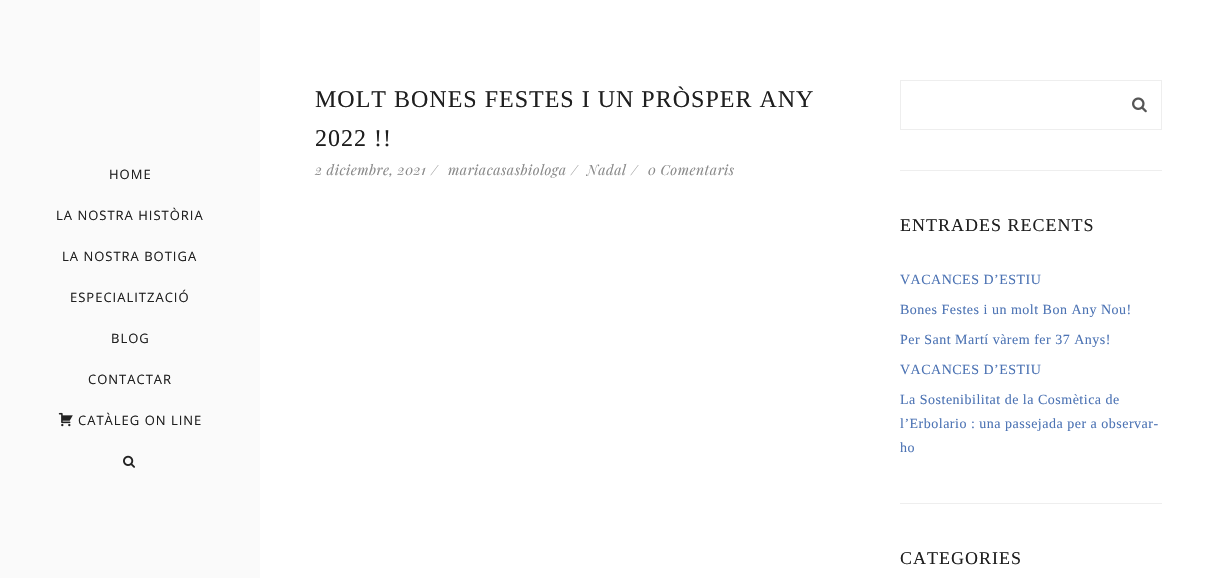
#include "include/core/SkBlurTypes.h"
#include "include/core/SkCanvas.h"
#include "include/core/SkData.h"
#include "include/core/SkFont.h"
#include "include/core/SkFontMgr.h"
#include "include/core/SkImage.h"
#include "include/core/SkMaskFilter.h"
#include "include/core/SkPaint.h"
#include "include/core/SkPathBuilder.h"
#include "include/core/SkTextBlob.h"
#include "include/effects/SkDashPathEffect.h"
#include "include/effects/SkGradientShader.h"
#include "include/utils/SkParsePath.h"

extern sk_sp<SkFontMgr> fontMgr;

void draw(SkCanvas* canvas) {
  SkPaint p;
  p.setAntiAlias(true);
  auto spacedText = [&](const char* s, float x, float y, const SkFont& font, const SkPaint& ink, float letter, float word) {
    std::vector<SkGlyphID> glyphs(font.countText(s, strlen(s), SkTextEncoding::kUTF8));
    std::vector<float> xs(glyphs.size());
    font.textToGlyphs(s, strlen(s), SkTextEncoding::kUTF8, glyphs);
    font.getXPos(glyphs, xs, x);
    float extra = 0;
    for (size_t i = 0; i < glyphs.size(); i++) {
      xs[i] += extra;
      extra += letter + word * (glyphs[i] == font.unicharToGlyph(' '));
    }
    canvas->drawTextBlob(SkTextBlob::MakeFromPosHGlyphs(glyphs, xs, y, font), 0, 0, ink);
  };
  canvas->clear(SkColorSetRGB(250, 250, 250));
  canvas->drawImageRect(SkImages::DeferredFromEncodedData(SkData::MakeFromFileName("images/1.png")), SkRect::MakeLTRB(58, 412, 73, 427), SkSamplingOptions());
  canvas->drawImageRect(SkImages::DeferredFromEncodedData(SkData::MakeFromFileName("images/2.png")), SkRect::MakeLTRB(123, 455, 135, 468), SkSamplingOptions());
  p.setColor(SK_ColorWHITE);
  canvas->drawRect(SkRect::MakeLTRB(260, 0, 1217, 578), p);
  p.setColor(SkColorSetRGB(238, 238, 238));
  canvas->drawRect(SkRect::MakeLTRB(900, 170, 1162, 171), p);
  p.setStyle(SkPaint::kStroke_Style);
  p.setStrokeWidth(1);
  canvas->drawRect(SkRect::MakeLTRB(900.5f, 80.5f, 1161.5f, 129.5f), p);
  canvas->drawImageRect(SkImages::DeferredFromEncodedData(SkData::MakeFromFileName("images/3.png")), SkRect::MakeLTRB(1132, 97, 1147, 113), SkSamplingOptions());
  p.setStyle(SkPaint::kFill_Style);
  canvas->drawRect(SkRect::MakeLTRB(900, 503, 1162, 504), p);
  SkFont font1(fontMgr->matchFamilyStyle("Open Sans", SkFontStyle::Normal()), 13);
  font1.setSubpixel(true);
  p.setColor(SkColorSetRGB(31, 31, 31));
  spacedText("HOME", 109, 179, font1, p, 1, 0);
  spacedText("LA NOSTRA HISTÒRIA", 56, 220, font1, p, 1, 0);
  spacedText("LA NOSTRA BOTIGA", 62, 261, font1, p, 1, 0);
  spacedText("ESPECIALITZACIÓ", 70, 302, font1, p, 1, 0);
  spacedText("BLOG", 111, 343, font1, p, 1, 0);
  spacedText("CONTACTAR", 88, 384, font1, p, 1, 0);
  spacedText("CATÀLEG ON LINE", 78, 425, font1, p, 1, 0);
  SkFont font2(fontMgr->matchFamilyStyle("Liberation Serif", SkFontStyle::Normal()), 24);
  font2.setSubpixel(true);
  spacedText("MOLT BONES FESTES I UN PRÒSPER ANY", 315, 107, font2, p, 1, 0);
  spacedText("2022 !!", 315, 146, font2, p, 1, 0);
  SkFont font3(fontMgr->matchFamilyStyle("Playfair Display", SkFontStyle::Italic()), 14);
  font3.setSubpixel(true);
  p.setColor(SkColorSetRGB(136, 136, 136));
  spacedText("2 diciembre, 2021", 315, 175, font3, p, 0.5f, 0);
  spacedText("/", 431, 175, font3, p, 0.5f, 0);
  spacedText("mariacasasbiologa", 448, 175, font3, p, 0.5f, 0);
  spacedText("/", 571, 175, font3, p, 0.5f, 0);
  spacedText("Nadal", 587, 175, font3, p, 0.5f, 0);
  spacedText("/", 631, 175, font3, p, 0.5f, 0);
  spacedText("0 Comentaris", 648, 175, font3, p, 0.5f, 0);
  SkFont font4(fontMgr->matchFamilyStyle("Liberation Serif", SkFontStyle::Normal()), 18);
  font4.setSubpixel(true);
  p.setColor(SkColorSetRGB(31, 31, 31));
  spacedText("ENTRADES RECENTS", 900, 231, font4, p, 1, 0);
  SkFont font5(fontMgr->matchFamilyStyle("Liberation Serif", SkFontStyle::Normal()), 14);
  font5.setSubpixel(true);
  p.setColor(SkColorSetRGB(76, 115, 180));
  spacedText("VACANCES D’ESTIU", 900, 284, font5, p, 0.5f, 0);
  spacedText("Bones Festes i un molt Bon Any Nou!", 900, 314, font5, p, 0.5f, 0);
  spacedText("Per Sant Martí vàrem fer 37 Anys!", 900, 344, font5, p, 0.5f, 0);
  spacedText("VACANCES D’ESTIU", 900, 374, font5, p, 0.5f, 0);
  spacedText("La Sostenibilitat de la Cosmètica de", 900, 404, font5, p, 0.5f, 0);
  spacedText("l’Erbolario : una passejada per a observar-", 900, 428, font5, p, 0.5f, 0);
  spacedText("ho", 900, 452, font5, p, 0.5f, 0);
  p.setColor(SkColorSetRGB(31, 31, 31));
  spacedText("CATEGORIES", 900, 564, font4, p, 1, 0);
}
